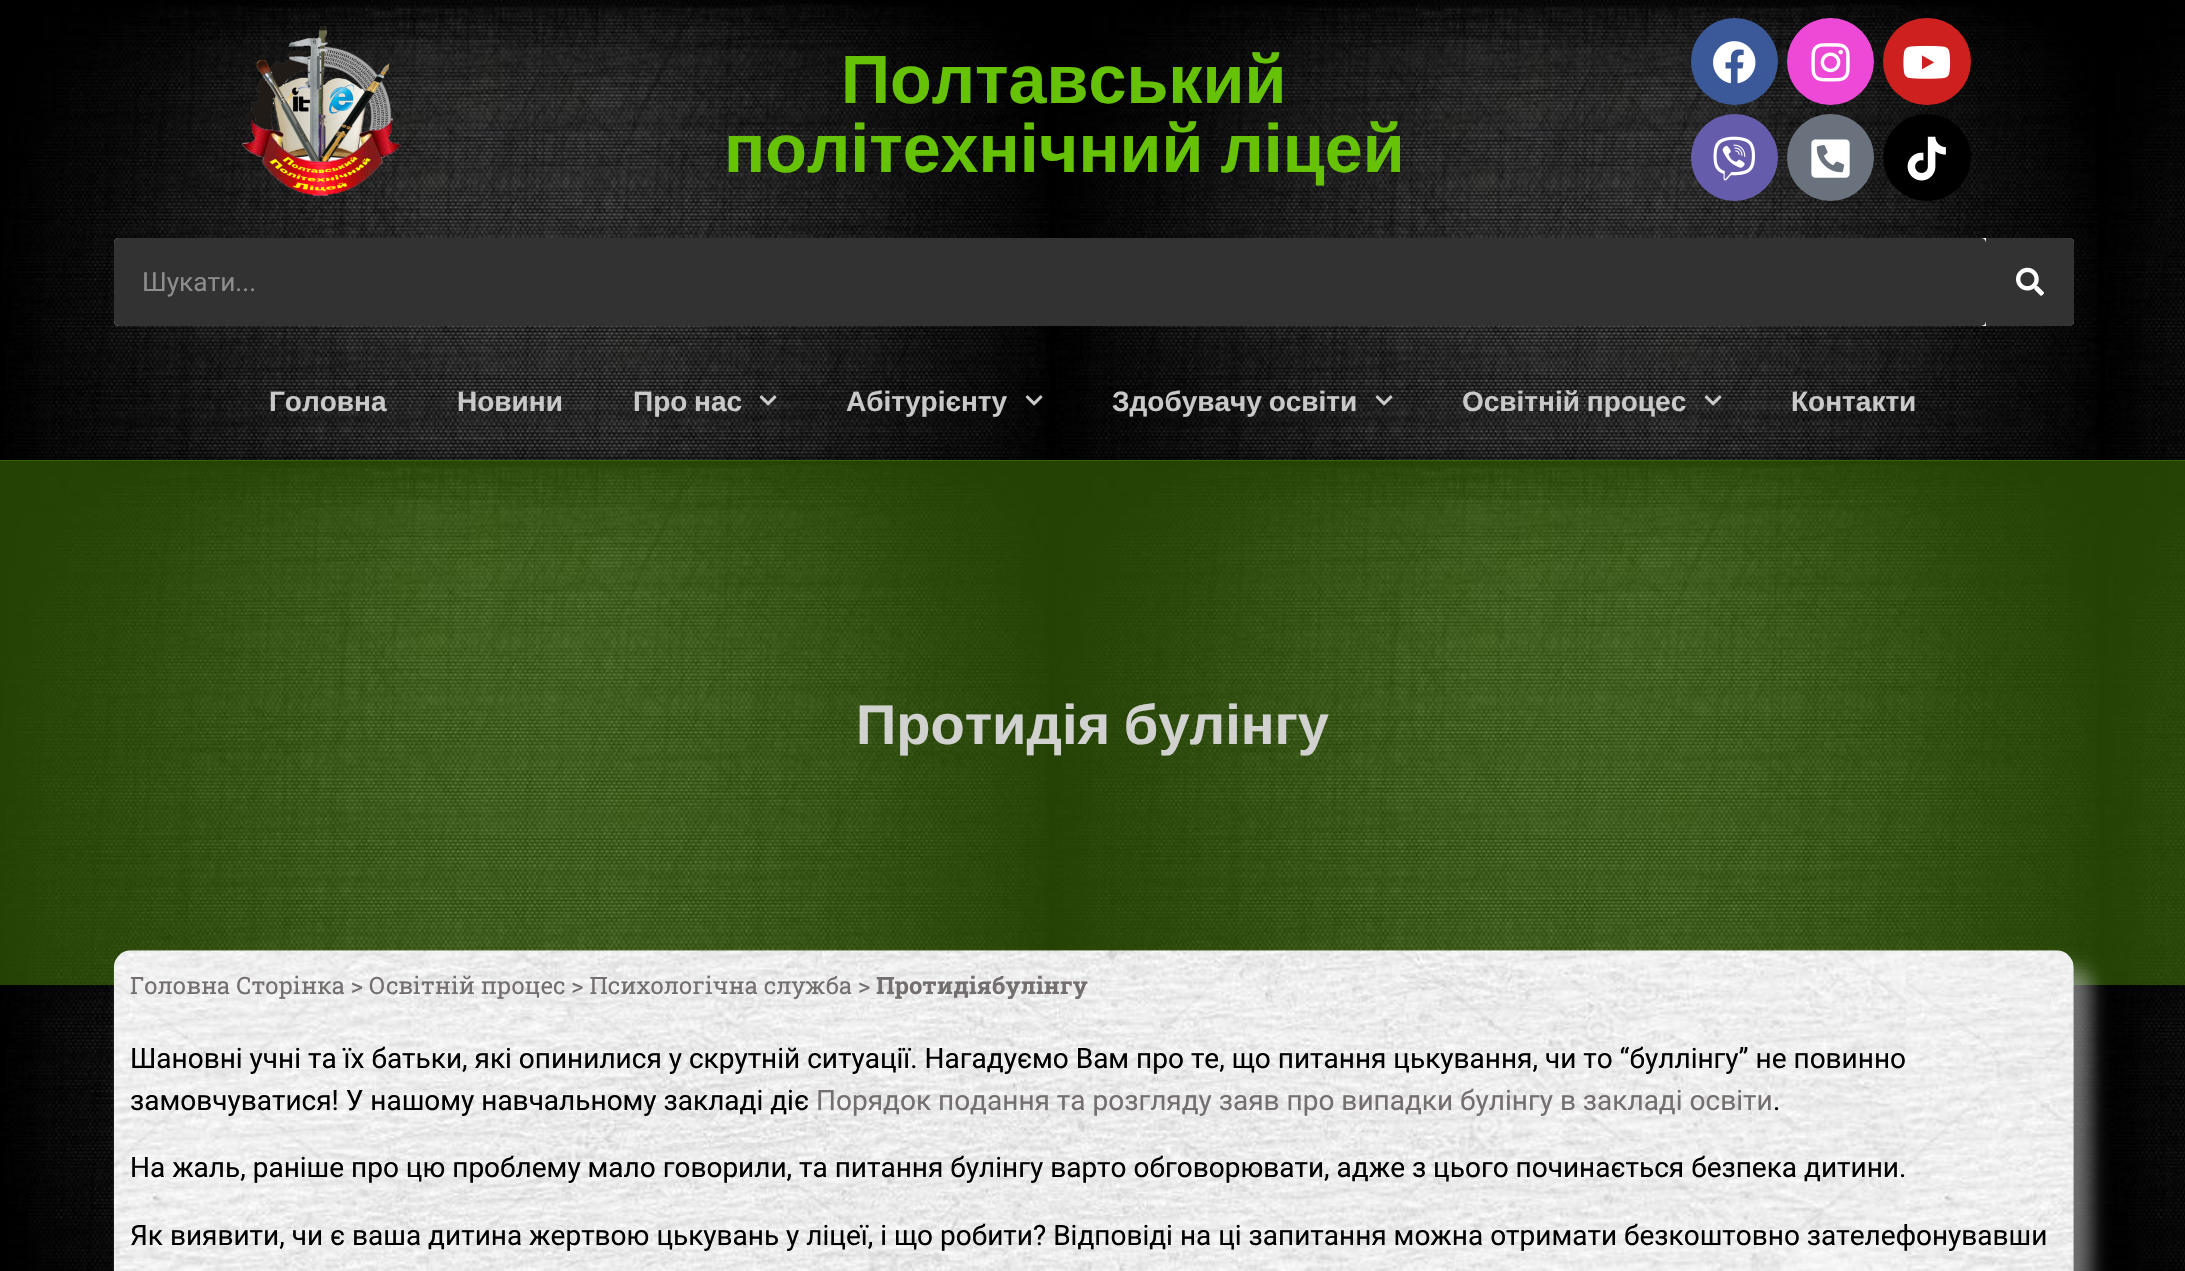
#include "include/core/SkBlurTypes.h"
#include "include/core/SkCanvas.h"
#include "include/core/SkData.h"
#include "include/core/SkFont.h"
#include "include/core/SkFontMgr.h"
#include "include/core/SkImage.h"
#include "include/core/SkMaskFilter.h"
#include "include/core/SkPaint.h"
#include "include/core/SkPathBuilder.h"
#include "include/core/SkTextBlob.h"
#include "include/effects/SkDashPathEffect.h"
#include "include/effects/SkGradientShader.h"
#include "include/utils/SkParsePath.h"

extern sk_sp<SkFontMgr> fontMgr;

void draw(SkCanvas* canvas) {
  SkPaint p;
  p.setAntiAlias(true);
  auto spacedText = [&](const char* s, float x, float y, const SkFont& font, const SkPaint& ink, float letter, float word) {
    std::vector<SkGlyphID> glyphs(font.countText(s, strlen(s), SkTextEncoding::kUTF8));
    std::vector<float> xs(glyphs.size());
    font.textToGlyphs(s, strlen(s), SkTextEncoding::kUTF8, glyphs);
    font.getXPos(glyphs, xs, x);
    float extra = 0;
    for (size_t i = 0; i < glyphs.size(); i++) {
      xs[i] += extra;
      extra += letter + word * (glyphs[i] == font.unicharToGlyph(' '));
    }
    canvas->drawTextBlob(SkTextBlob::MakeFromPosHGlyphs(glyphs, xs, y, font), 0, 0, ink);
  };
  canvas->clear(SK_ColorWHITE);
  canvas->drawImageRect(SkImages::DeferredFromEncodedData(SkData::MakeFromFileName("images/1.png")), SkRect::MakeLTRB(0, 0, 2185, 1271), SkSamplingOptions());
  canvas->drawImageRect(SkImages::DeferredFromEncodedData(SkData::MakeFromFileName("images/2.png")), SkRect::MakeLTRB(241, 26, 401, 196), SkSamplingOptions());
  p.setColor(SkColorSetRGB(59, 89, 152));
  canvas->drawCircle(1734.5f, 61.5f, 43.5f, p);
  canvas->drawImageRect(SkImages::DeferredFromEncodedData(SkData::MakeFromFileName("images/3.png")), SkRect::MakeLTRB(1713, 41, 1756, 84), SkSamplingOptions());
  p.setColor(SkColorSetRGB(237, 72, 214));
  canvas->drawCircle(1830.5f, 61.5f, 43.5f, p);
  canvas->drawImageRect(SkImages::DeferredFromEncodedData(SkData::MakeFromFileName("images/4.png")), SkRect::MakeLTRB(1811, 43, 1850, 82), SkSamplingOptions());
  p.setColor(SkColorSetRGB(205, 32, 31));
  canvas->drawRoundRect(SkRect::MakeLTRB(1883, 18, 1971, 105), 43.5f, 43.5f, p);
  canvas->drawImageRect(SkImages::DeferredFromEncodedData(SkData::MakeFromFileName("images/5.png")), SkRect::MakeLTRB(1903, 45, 1951, 79), SkSamplingOptions());
  p.setColor(SkColorSetRGB(102, 92, 172));
  canvas->drawCircle(1734.5f, 157.5f, 43.5f, p);
  canvas->drawImageRect(SkImages::DeferredFromEncodedData(SkData::MakeFromFileName("images/6.png")), SkRect::MakeLTRB(1713, 136, 1755, 181), SkSamplingOptions());
  p.setColor(SkColorSetRGB(105, 114, 125));
  canvas->drawCircle(1830.5f, 157.5f, 43.5f, p);
  canvas->drawImageRect(SkImages::DeferredFromEncodedData(SkData::MakeFromFileName("images/7.png")), SkRect::MakeLTRB(1811, 139, 1850, 178), SkSamplingOptions());
  p.setColor(SK_ColorBLACK);
  canvas->drawRoundRect(SkRect::MakeLTRB(1883, 114, 1971, 201), 43.5f, 43.5f, p);
  canvas->drawImageRect(SkImages::DeferredFromEncodedData(SkData::MakeFromFileName("images/8.png")), SkRect::MakeLTRB(1907, 136, 1946, 181), SkSamplingOptions());
  p.setColor(SkColorSetRGB(241, 242, 243));
  canvas->drawRoundRect(SkRect::MakeLTRB(114, 238, 2074, 326), 5, 5, p);
  p.setColor(SkColorSetARGB(252, 48, 48, 48));
  canvas->drawRoundRect(SkRect::MakeLTRB(114, 238, 1986, 326), 5, 5, p);
  canvas->save();
  canvas->clipPath(SkPathBuilder().moveTo(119, 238).lineTo(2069, 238).cubicTo(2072, 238, 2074, 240, 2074, 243).lineTo(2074, 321).cubicTo(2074, 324, 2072, 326, 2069, 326).lineTo(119, 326).cubicTo(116, 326, 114, 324, 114, 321).lineTo(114, 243).cubicTo(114, 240, 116, 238, 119, 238).close().detach(), true);
  canvas->clipPath(SkPathBuilder(SkPathFillType::kEvenOdd).moveTo(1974, 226).lineTo(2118, 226).lineTo(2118, 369).lineTo(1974, 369).close().moveTo(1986, 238).lineTo(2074, 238).lineTo(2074, 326).lineTo(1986, 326).close().detach(), true);
  p.setColor(SkColorSetARGB(128, 0, 0, 0));
  p.setMaskFilter(SkMaskFilter::MakeBlur(kNormal_SkBlurStyle, 9));
  canvas->drawRect(SkRect::MakeLTRB(2002, 254, 2090, 341), p);
  p.setMaskFilter(nullptr);
  canvas->restore();
  p.setColor(SkColorSetARGB(252, 48, 48, 48));
  canvas->drawPath(SkPathBuilder().moveTo(1986, 238).lineTo(2069, 238).cubicTo(2072, 238, 2074, 240, 2074, 243).lineTo(2074, 321).cubicTo(2074, 324, 2072, 326, 2069, 326).lineTo(1986, 326).close().detach(), p);
  canvas->drawImageRect(SkImages::DeferredFromEncodedData(SkData::MakeFromFileName("images/9.png")), SkRect::MakeLTRB(2016, 267, 2044, 296), SkSamplingOptions());
  canvas->drawImageRect(SkImages::DeferredFromEncodedData(SkData::MakeFromFileName("images/10.png")), SkRect::MakeLTRB(759, 395, 777, 406), SkSamplingOptions());
  canvas->drawImageRect(SkImages::DeferredFromEncodedData(SkData::MakeFromFileName("images/11.png")), SkRect::MakeLTRB(1025, 395, 1043, 406), SkSamplingOptions());
  canvas->drawImageRect(SkImages::DeferredFromEncodedData(SkData::MakeFromFileName("images/12.png")), SkRect::MakeLTRB(1375, 395, 1393, 406), SkSamplingOptions());
  canvas->drawImageRect(SkImages::DeferredFromEncodedData(SkData::MakeFromFileName("images/13.png")), SkRect::MakeLTRB(1704, 395, 1722, 406), SkSamplingOptions());
  p.setColor(SkColorSetARGB(128, 0, 0, 0));
  p.setMaskFilter(SkMaskFilter::MakeBlur(kNormal_SkBlurStyle, 9));
  canvas->drawRect(SkRect::MakeLTRB(0, 460, 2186, 985), p);
  p.setMaskFilter(nullptr);
  p.setColor(SkColorSetRGB(101, 194, 7));
  canvas->drawRect(SkRect::MakeLTRB(0, 460, 2185, 985), p);
  canvas->drawImageRect(SkImages::DeferredFromEncodedData(SkData::MakeFromFileName("images/14.png")), SkRect::MakeLTRB(0, 460, 2185, 985), SkSamplingOptions());
  p.setColor(SkColorSetARGB(128, 216, 216, 216));
  p.setMaskFilter(SkMaskFilter::MakeBlur(kNormal_SkBlurStyle, 9));
  canvas->drawRoundRect(SkRect::MakeLTRB(131, 968, 2091, 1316), 18, 18, p);
  p.setMaskFilter(nullptr);
  canvas->drawImageRect(SkImages::DeferredFromEncodedData(SkData::MakeFromFileName("images/15.png")), SkRect::MakeLTRB(113, 950, 2074, 1271), SkSamplingOptions());
  SkFont font1(fontMgr->matchFamilyStyle("Liberation Sans", SkFontStyle::Bold()), 68.25f);
  font1.setSubpixel(true);
  p.setColor(SkColorSetRGB(101, 194, 7));
  canvas->drawString("Полтавський", 841, 103, font1, p);
  spacedText("політехнічний ліцей", 724, 172, font1, p, 0, -2);
  SkFont font2(fontMgr->matchFamilyStyle("Roboto", SkFontStyle::Normal()), 26.25f);
  font2.setSubpixel(true);
  p.setColor(SkColorSetRGB(141, 141, 141));
  canvas->drawString("Шукати...", 142, 291, font2, p);
  SkFont font3(fontMgr->matchFamilyStyle("Liberation Sans", SkFontStyle::Bold()), 28);
  font3.setSubpixel(true);
  p.setColor(SkColorSetRGB(201, 201, 201));
  canvas->drawString("Головна", 269, 411, font3, p);
  canvas->drawString("Новини", 457, 411, font3, p);
  spacedText("Про нас", 633, 411, font3, p, 0, -1);
  canvas->drawString("Абітурієнту", 846, 411, font3, p);
  spacedText("Здобувачу освіти", 1112, 411, font3, p, 0, -1);
  spacedText("Освітній процес", 1462, 411, font3, p, 0, -1);
  canvas->drawString("Контакти", 1791, 411, font3, p);
  SkFont font4(fontMgr->matchFamilyStyle("Liberation Sans", SkFontStyle::Bold()), 56);
  font4.setSubpixel(true);
  p.setColor(SkColorSetRGB(209, 209, 207));
  spacedText("Протидія булінгу", 856, 744, font4, p, 0, -2);
  SkFont font5(fontMgr->matchFamilyStyle("Roboto Slab", SkFontStyle::Normal()), 23.8f);
  font5.setSubpixel(true);
  p.setColor(SkColorSetRGB(116, 111, 111));
  canvas->drawString("Головна Сторінка > Освітній процес > Психологічна служба >", 130, 994, font5, p);
  SkFont font6(fontMgr->matchFamilyStyle("Roboto Slab", SkFontStyle::Bold()), 23.8f);
  font6.setSubpixel(true);
  canvas->drawString("Протидія булінгу", 876, 994, font6, p);
  SkFont font7(fontMgr->matchFamilyStyle("Roboto", SkFontStyle::Normal()), 28);
  font7.setSubpixel(true);
  p.setColor(SK_ColorBLACK);
  canvas->drawString("Шановні учні та їх батьки, які опинилися у скрутній ситуації. Нагадуємо Вам про те, що питання цькування, чи то “буллінгу” не повинно", 130, 1068, font7, p);
  canvas->drawString("замовчуватися! У нашому навчальному закладі діє", 130, 1110, font7, p);
  p.setColor(SkColorSetRGB(116, 111, 111));
  canvas->drawString("Порядок подання та розгляду заяв про випадки булінгу в закладі освіти", 816, 1110, font7, p);
  p.setColor(SK_ColorBLACK);
  canvas->drawString(".", 1773, 1110, font7, p);
  canvas->drawString("На жаль, раніше про цю проблему мало говорили, та питання булінгу варто обговорювати, адже з цього починається безпека дитини.", 130, 1177, font7, p);
  canvas->drawString("Як виявити, чи є ваша дитина жертвою цькувань у ліцеї, і що робити? Відповіді на ці запитання можна отримати безкоштовно зателефонувавши", 130, 1245, font7, p);
}
